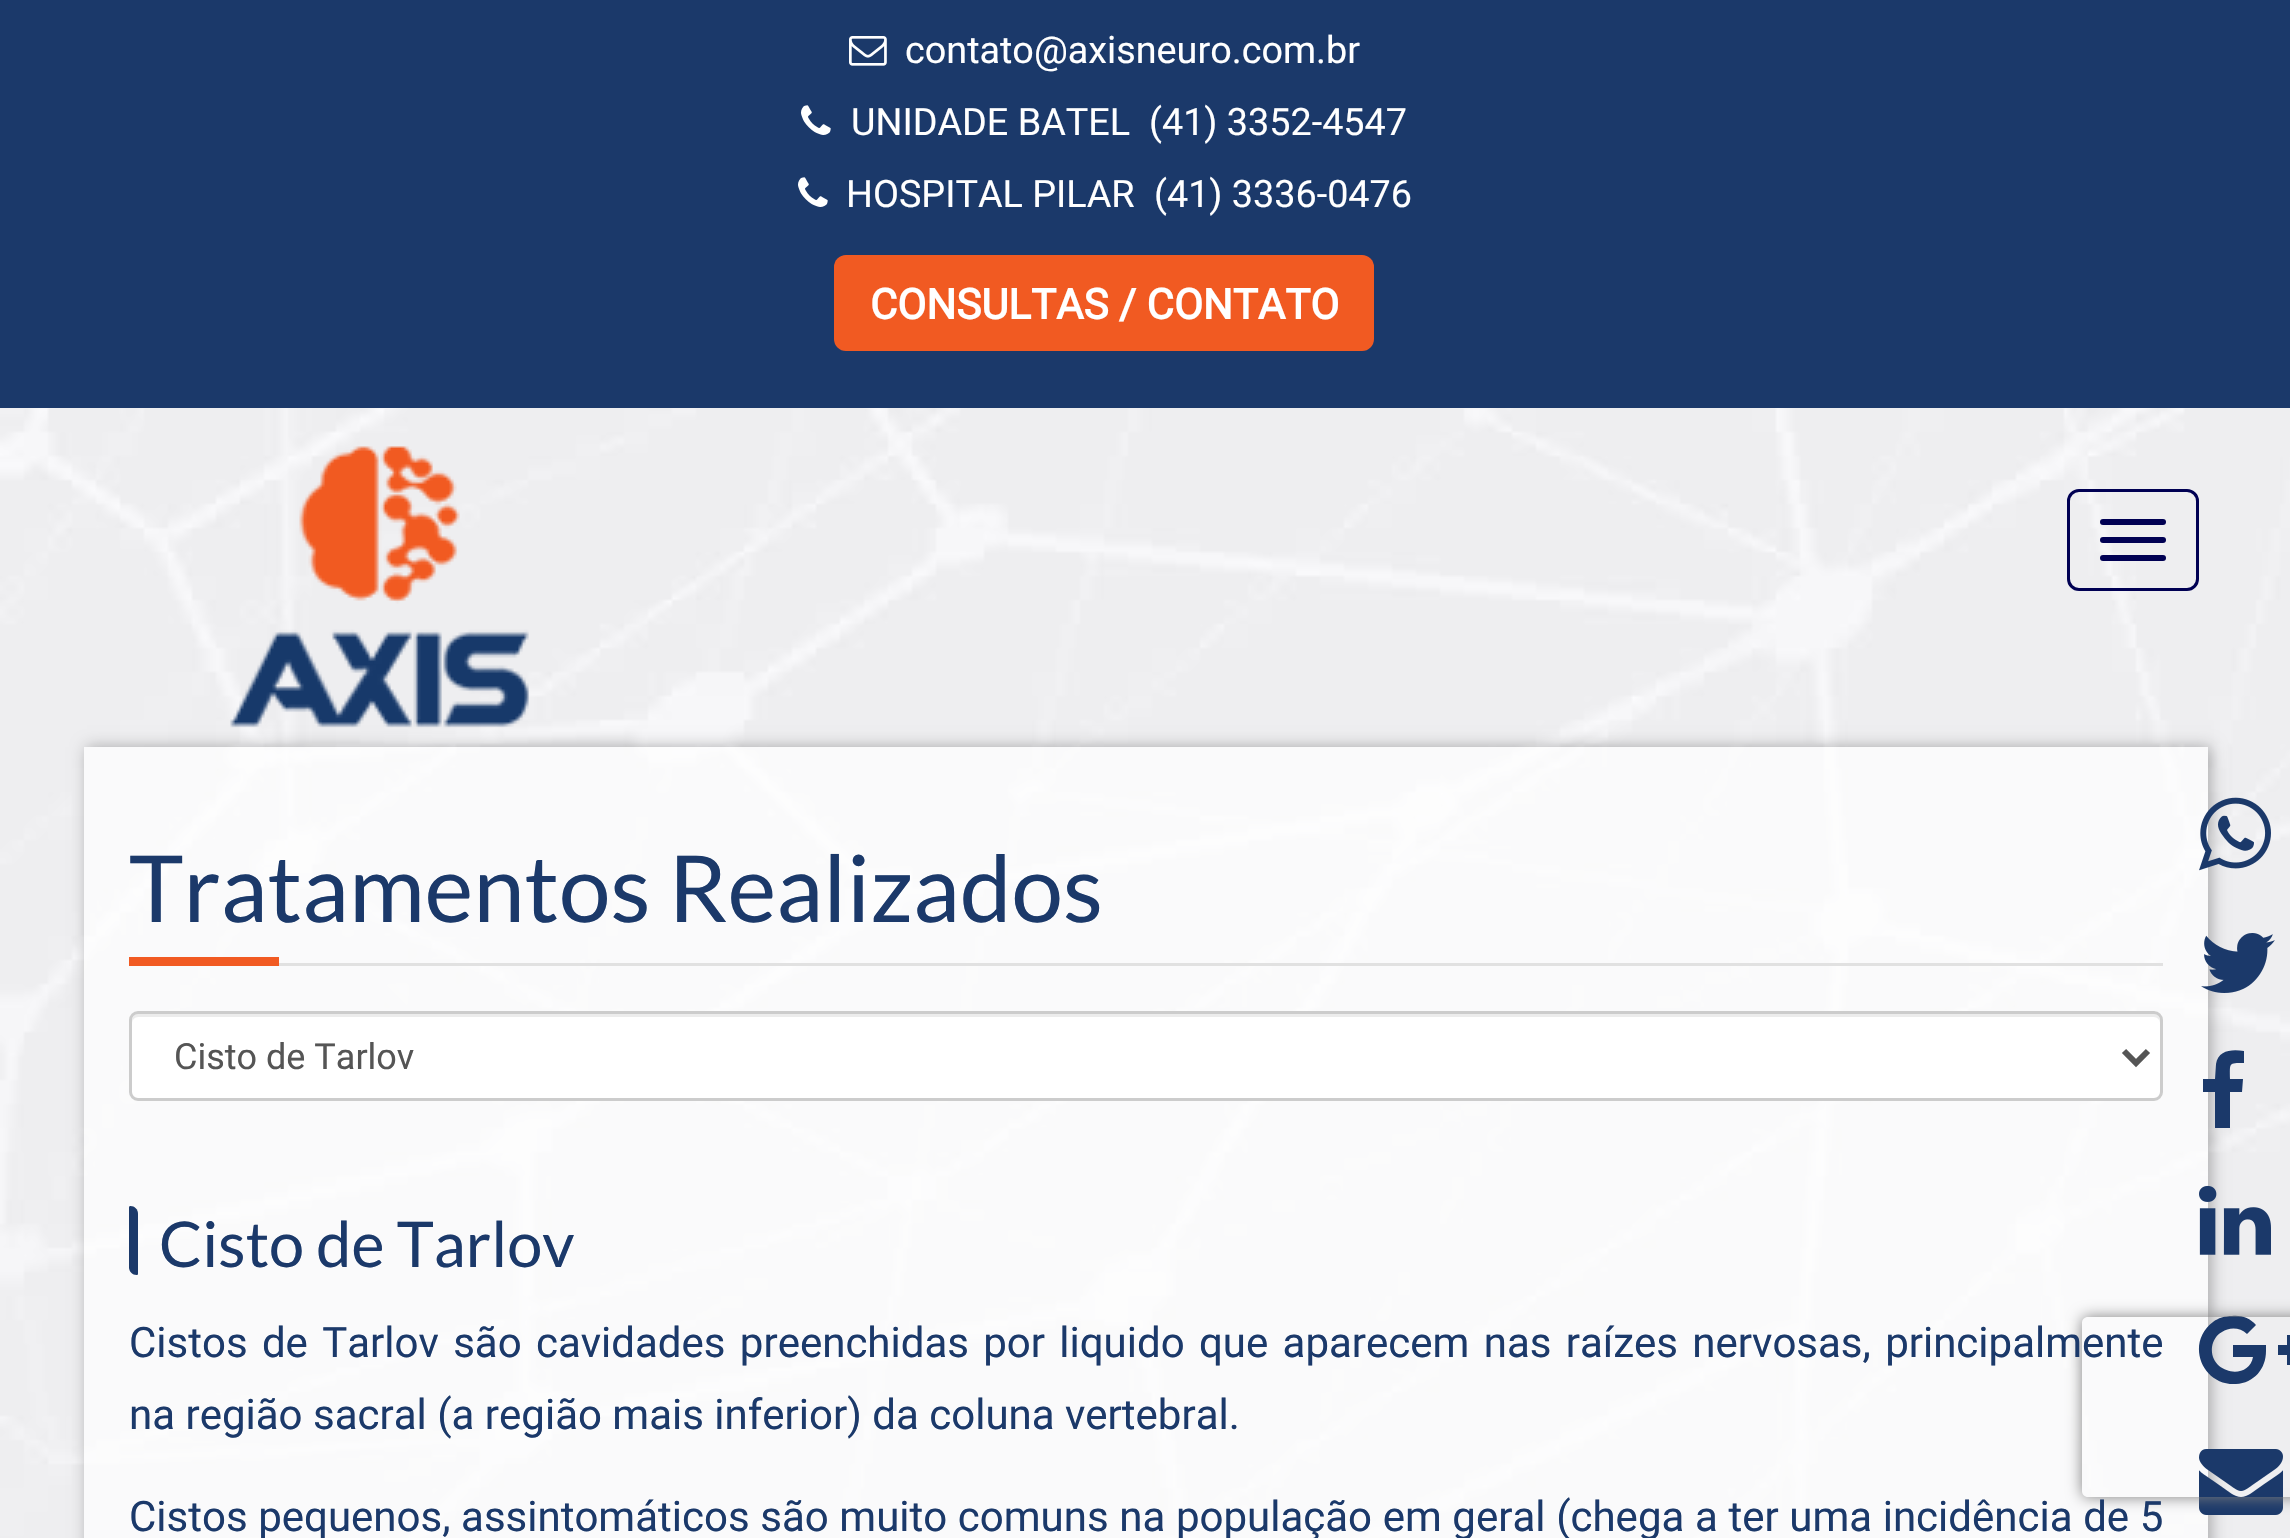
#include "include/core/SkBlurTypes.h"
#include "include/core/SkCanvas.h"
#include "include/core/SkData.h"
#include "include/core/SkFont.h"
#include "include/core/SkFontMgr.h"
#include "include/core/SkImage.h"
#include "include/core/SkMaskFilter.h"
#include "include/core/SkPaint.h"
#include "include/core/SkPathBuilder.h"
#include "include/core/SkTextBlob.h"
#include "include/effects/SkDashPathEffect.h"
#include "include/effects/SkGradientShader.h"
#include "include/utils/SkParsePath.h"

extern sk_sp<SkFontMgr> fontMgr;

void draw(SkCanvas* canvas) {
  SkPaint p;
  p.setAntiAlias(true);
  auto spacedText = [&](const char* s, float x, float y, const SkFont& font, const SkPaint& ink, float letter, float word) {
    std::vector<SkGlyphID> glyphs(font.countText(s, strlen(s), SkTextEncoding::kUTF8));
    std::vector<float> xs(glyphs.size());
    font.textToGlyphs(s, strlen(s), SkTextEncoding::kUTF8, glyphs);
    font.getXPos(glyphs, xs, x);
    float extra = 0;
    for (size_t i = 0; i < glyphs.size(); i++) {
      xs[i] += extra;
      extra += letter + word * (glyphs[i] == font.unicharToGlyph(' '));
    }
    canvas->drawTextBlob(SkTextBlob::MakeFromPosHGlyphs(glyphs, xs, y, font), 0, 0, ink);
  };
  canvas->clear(SK_ColorWHITE);
  canvas->drawImageRect(SkImages::DeferredFromEncodedData(SkData::MakeFromFileName("images/1.png")), SkRect::MakeLTRB(0, 408, 2290, 1538), SkSamplingOptions());
  p.setColor(SkColorSetRGB(27, 57, 106));
  canvas->drawRect(SkRect::MakeLTRB(0, 0, 2290, 408), p);
  canvas->drawImageRect(SkImages::DeferredFromEncodedData(SkData::MakeFromFileName("images/2.png")), SkRect::MakeLTRB(849, 36, 887, 66), SkSamplingOptions());
  canvas->drawImageRect(SkImages::DeferredFromEncodedData(SkData::MakeFromFileName("images/3.png")), SkRect::MakeLTRB(801, 105, 831, 135), SkSamplingOptions());
  canvas->drawImageRect(SkImages::DeferredFromEncodedData(SkData::MakeFromFileName("images/3.png")), SkRect::MakeLTRB(798, 177, 828, 207), SkSamplingOptions());
  p.setColor(SkColorSetRGB(241, 90, 34));
  canvas->drawRoundRect(SkRect::MakeLTRB(834, 255, 1374, 351), 12, 12, p);
  canvas->save();
  canvas->clipPath(SkPathBuilder(SkPathFillType::kEvenOdd).moveTo(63, 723).lineTo(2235, 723).lineTo(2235, 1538).lineTo(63, 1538).close().moveTo(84, 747).lineTo(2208, 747).lineTo(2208, 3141).lineTo(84, 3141).close().detach(), true);
  p.setColor(SkColorSetARGB(77, 0, 0, 0));
  p.setMaskFilter(SkMaskFilter::MakeBlur(kNormal_SkBlurStyle, 7.5f));
  canvas->drawRect(SkRect::MakeLTRB(87, 747, 2211, 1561), p);
  p.setMaskFilter(nullptr);
  canvas->restore();
  canvas->drawImageRect(SkImages::DeferredFromEncodedData(SkData::MakeFromFileName("images/4.png")), SkRect::MakeLTRB(230, 446, 529, 728), SkSamplingOptions());
  p.setStyle(SkPaint::kStroke_Style);
  p.setStrokeWidth(3);
  p.setColor(SkColorSetRGB(0, 0, 83));
  canvas->drawRoundRect(SkRect::MakeLTRB(2068.5f, 490.5f, 2197.5f, 589.5f), 10.5f, 10.5f, p);
  p.setStyle(SkPaint::kFill_Style);
  canvas->drawRoundRect(SkRect::MakeLTRB(2100, 519, 2166, 525), 3, 3, p);
  canvas->drawRoundRect(SkRect::MakeLTRB(2100, 537, 2166, 543), 3, 3, p);
  canvas->drawRoundRect(SkRect::MakeLTRB(2100, 555, 2166, 561), 3, 3, p);
  p.setColor(SkColorSetARGB(179, 255, 255, 255));
  canvas->drawRect(SkRect::MakeLTRB(84, 747, 2208, 1538), p);
  p.setColor(SkColorSetRGB(225, 225, 225));
  canvas->drawRect(SkRect::MakeLTRB(279, 963, 2163, 966), p);
  p.setColor(SkColorSetRGB(241, 90, 34));
  canvas->drawRect(SkRect::MakeLTRB(129, 957, 279, 966), p);
  canvas->drawImageRect(SkImages::DeferredFromEncodedData(SkData::MakeFromFileName("images/5.png")), SkRect::MakeLTRB(2199, 797, 2271, 871), SkSamplingOptions());
  canvas->drawImageRect(SkImages::DeferredFromEncodedData(SkData::MakeFromFileName("images/6.png")), SkRect::MakeLTRB(2201, 933, 2275, 993), SkSamplingOptions());
  p.setColor(SkColorSetRGB(27, 57, 106));
  canvas->drawPath(SkPathBuilder().moveTo(2244, 1051).lineTo(2244, 1063).cubicTo(2228, 1063, 2230, 1063, 2230, 1079).lineTo(2243, 1079).lineTo(2242, 1092).lineTo(2230, 1092).lineTo(2230, 1128).lineTo(2215, 1128).lineTo(2215, 1092).lineTo(2203, 1092).lineTo(2203, 1079).lineTo(2215, 1079).lineTo(2216, 1064).cubicTo(2218, 1050, 2232, 1049, 2244, 1051).close().detach(), p);
  canvas->drawImageRect(SkImages::DeferredFromEncodedData(SkData::MakeFromFileName("images/7.png")), SkRect::MakeLTRB(2199, 1185, 2271, 1255), SkSamplingOptions());
  canvas->drawPath(SkPathBuilder().moveTo(2266, 1351).cubicTo(2266, 1369, 2254, 1383, 2236, 1384).cubicTo(2202, 1386, 2185, 1343, 2213, 1322).cubicTo(2218, 1318, 2225, 1316, 2232, 1316).cubicTo(2241, 1315, 2250, 1318, 2256, 1325).lineTo(2247, 1334).cubicTo(2240, 1327, 2229, 1327, 2222, 1332).cubicTo(2216, 1335, 2213, 1341, 2212, 1347).cubicTo(2209, 1374, 2249, 1381, 2253, 1357).lineTo(2233, 1357).lineTo(2233, 1345).lineTo(2266, 1345).close().moveTo(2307, 1345).lineTo(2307, 1355).lineTo(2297, 1355).lineTo(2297, 1365).lineTo(2287, 1365).lineTo(2287, 1355).lineTo(2278, 1355).lineTo(2278, 1345).lineTo(2287, 1345).lineTo(2287, 1335).lineTo(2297, 1335).lineTo(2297, 1345).close().detach(), p);
  canvas->drawImageRect(SkImages::DeferredFromEncodedData(SkData::MakeFromFileName("images/8.png")), SkRect::MakeLTRB(2199, 1449, 2283, 1515), SkSamplingOptions());
  p.setColor(SK_ColorWHITE);
  canvas->drawRoundRect(SkRect::MakeLTRB(129, 1011, 2163, 1101), 9, 9, p);
  p.setColor(SkColorSetRGB(236, 236, 236));
  canvas->drawPath(SkPathBuilder().moveTo(138, 1017).lineTo(2154, 1017).cubicTo(2157, 1017, 2160, 1020, 2160, 1023).cubicTo(2160, 1019, 2159, 1014, 2154, 1014).lineTo(138, 1014).cubicTo(133, 1014, 132, 1019, 132, 1023).cubicTo(132, 1020, 135, 1017, 138, 1017).close().detach(), p);
  p.setStyle(SkPaint::kStroke_Style);
  p.setColor(SkColorSetRGB(204, 204, 204));
  canvas->drawRoundRect(SkRect::MakeLTRB(130.5f, 1012.5f, 2161.5f, 1099.5f), 7.5f, 7.5f, p);
  p.setStrokeWidth(6);
  p.setColor(SkColorSetRGB(85, 85, 85));
  canvas->drawPath(SkPathBuilder().moveTo(2124, 1051).lineTo(2136, 1063).lineTo(2148, 1051).detach(), p);
  p.setStyle(SkPaint::kFill_Style);
  p.setColor(SkColorSetRGB(27, 57, 106));
  canvas->drawPath(SkPathBuilder().moveTo(130.5f, 1206).cubicTo(134.5f, 1206, 138, 1209.5f, 138, 1213.5f).lineTo(138, 1273.5f).cubicTo(138, 1274.5f, 137.5f, 1275, 136.5f, 1275).cubicTo(132.5f, 1275, 129, 1271.5f, 129, 1267.5f).lineTo(129, 1207.5f).cubicTo(129, 1206.5f, 129.5f, 1206, 130.5f, 1206).close().detach(), p);
  canvas->save();
  canvas->clipPath(SkPathBuilder(SkPathFillType::kEvenOdd).moveTo(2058, 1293).lineTo(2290, 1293).lineTo(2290, 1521).lineTo(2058, 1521).close().moveTo(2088, 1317).lineTo(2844, 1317).cubicTo(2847.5f, 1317, 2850, 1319.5f, 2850, 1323).lineTo(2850, 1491).cubicTo(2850, 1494.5f, 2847.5f, 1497, 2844, 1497).lineTo(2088, 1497).cubicTo(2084.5f, 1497, 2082, 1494.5f, 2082, 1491).lineTo(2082, 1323).cubicTo(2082, 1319.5f, 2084.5f, 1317, 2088, 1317).close().detach(), true);
  p.setColor(SkColorSetRGB(128, 128, 128));
  p.setMaskFilter(SkMaskFilter::MakeBlur(kNormal_SkBlurStyle, 7.5f));
  canvas->drawRoundRect(SkRect::MakeLTRB(2082, 1317, 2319, 1497), 6, 6, p);
  p.setMaskFilter(nullptr);
  canvas->restore();
  SkFont font1(fontMgr->matchFamilyStyle("Roboto", SkFontStyle::Normal()), 37.75f);
  font1.setSubpixel(true);
  p.setColor(SK_ColorWHITE);
  canvas->drawString("contato@axisneuro.com.br", 905, 63, font1, p);
  canvas->drawString("UNIDADE BATEL", 851, 135, font1, p);
  canvas->drawString("(41) 3352-4547", 1149, 135, font1, p);
  canvas->drawString("HOSPITAL PILAR", 846, 207, font1, p);
  canvas->drawString("(41) 3336-0476", 1154, 207, font1, p);
  SkFont font2(fontMgr->matchFamilyStyle("Roboto", SkFontStyle::Bold()), 42);
  font2.setSubpixel(true);
  canvas->drawString("CONSULTAS / CONTATO", 870, 319, font2, p);
  SkFont font3(fontMgr->matchFamilyStyle("Lato", SkFontStyle::Normal()), 92.4f);
  font3.setSubpixel(true);
  p.setColor(SkColorSetRGB(27, 57, 106));
  canvas->drawString("Tratamentos Realizados", 129, 922, font3, p);
  SkFont font4(fontMgr->matchFamilyStyle("Roboto", SkFontStyle::Normal()), 36);
  font4.setSubpixel(true);
  p.setColor(SkColorSetRGB(85, 85, 85));
  canvas->drawString("Cisto de Tarlov", 174, 1069, font4, p);
  SkFont font5(fontMgr->matchFamilyStyle("Lato", SkFontStyle::Normal()), 63);
  font5.setSubpixel(true);
  p.setColor(SkColorSetRGB(27, 57, 106));
  canvas->drawString("Cisto de Tarlov", 159, 1267, font5, p);
  SkFont font6(fontMgr->matchFamilyStyle("Roboto", SkFontStyle::Normal()), 42);
  font6.setSubpixel(true);
  spacedText("Cistos de Tarlov são cavidades preenchidas por liquido que aparecem nas raízes nervosas, principalmente", 129, 1357, font6, p, 0, 3.9f);
  canvas->drawString("na região sacral (a região mais inferior) da coluna vertebral.", 129, 1429, font6, p);
  spacedText("Cistos pequenos, assintomáticos são muito comuns na população em geral (chega a ter uma incidência de 5", 129, 1531, font6, p, 0, 0.2f);
}
